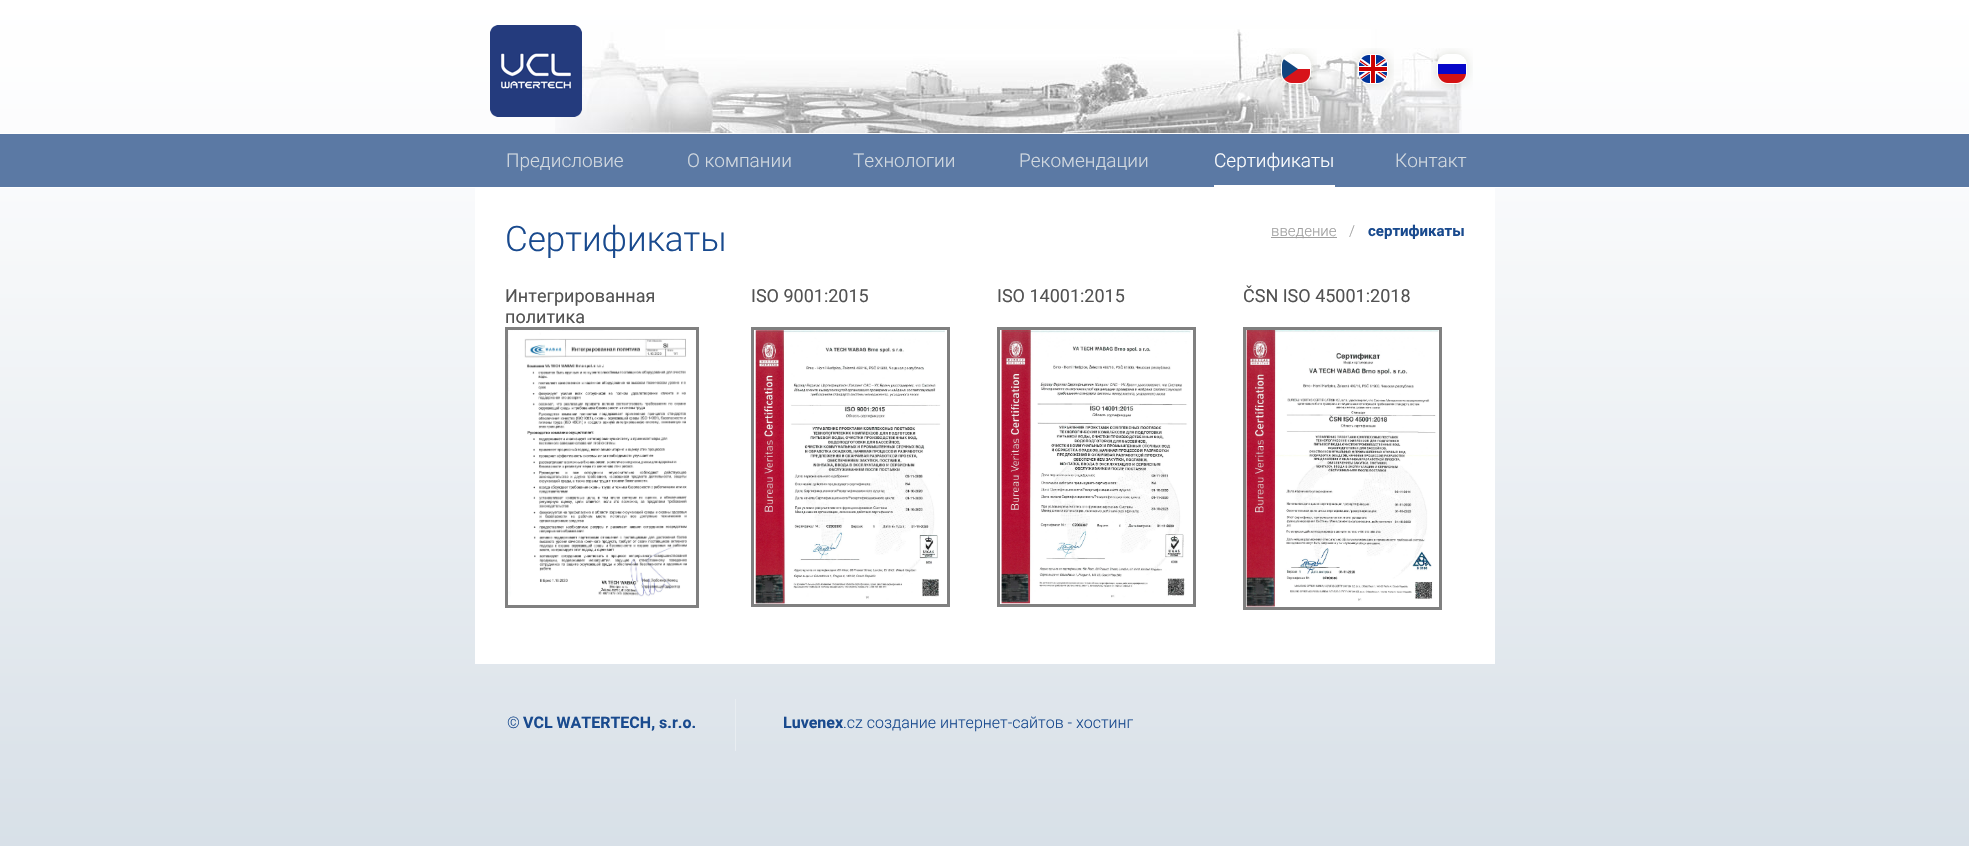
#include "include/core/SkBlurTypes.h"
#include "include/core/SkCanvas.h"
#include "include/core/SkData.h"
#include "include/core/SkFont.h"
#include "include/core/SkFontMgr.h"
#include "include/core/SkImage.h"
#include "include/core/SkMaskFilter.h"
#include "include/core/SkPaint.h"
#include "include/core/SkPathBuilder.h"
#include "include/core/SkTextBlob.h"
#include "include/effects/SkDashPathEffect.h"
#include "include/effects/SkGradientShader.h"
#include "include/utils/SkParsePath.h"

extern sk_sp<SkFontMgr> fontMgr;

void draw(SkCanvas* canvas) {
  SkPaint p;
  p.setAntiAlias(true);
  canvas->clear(SK_ColorWHITE);
  canvas->drawImageRect(SkImages::DeferredFromEncodedData(SkData::MakeFromFileName("images/1.png")), SkRect::MakeLTRB(0, 0, 1969, 846), SkSamplingOptions());
  canvas->drawImageRect(SkImages::DeferredFromEncodedData(SkData::MakeFromFileName("images/2.png")), SkRect::MakeLTRB(555, 29, 1462, 133), SkSamplingOptions());
  canvas->drawImageRect(SkImages::DeferredFromEncodedData(SkData::MakeFromFileName("images/3.png")), SkRect::MakeLTRB(490, 25, 582, 117), SkSamplingOptions());
  canvas->drawImageRect(SkImages::DeferredFromEncodedData(SkData::MakeFromFileName("images/4.png")), SkRect::MakeLTRB(1275, 48, 1317, 90), SkSamplingOptions());
  canvas->drawImageRect(SkImages::DeferredFromEncodedData(SkData::MakeFromFileName("images/5.png")), SkRect::MakeLTRB(1352, 48, 1394, 90), SkSamplingOptions());
  canvas->drawImageRect(SkImages::DeferredFromEncodedData(SkData::MakeFromFileName("images/6.png")), SkRect::MakeLTRB(1431, 48, 1473, 90), SkSamplingOptions());
  p.setColor(SkColorSetRGB(91, 121, 164));
  canvas->drawRect(SkRect::MakeLTRB(0, 134, 1969, 187), p);
  p.setColor(SK_ColorWHITE);
  canvas->drawRect(SkRect::MakeLTRB(0, 133, 1969, 134), p);
  canvas->drawRect(SkRect::MakeLTRB(0, 187, 1969, 188), p);
  canvas->drawRect(SkRect::MakeLTRB(1214, 185, 1335, 187), p);
  canvas->drawRect(SkRect::MakeLTRB(475, 188, 1495, 664), p);
  p.setStyle(SkPaint::kStroke_Style);
  p.setStrokeWidth(3);
  p.setColor(SkColorSetRGB(128, 128, 128));
  canvas->drawRect(SkRect::MakeLTRB(506.5f, 328.5f, 697.5f, 606.5f), p);
  canvas->drawImageRect(SkImages::DeferredFromEncodedData(SkData::MakeFromFileName("images/7.png")), SkRect::MakeLTRB(508, 330, 687, 597), SkSamplingOptions());
  canvas->drawRect(SkRect::MakeLTRB(752.5f, 328.5f, 948.5f, 605.5f), p);
  canvas->drawImageRect(SkImages::DeferredFromEncodedData(SkData::MakeFromFileName("images/8.png")), SkRect::MakeLTRB(755, 330, 945, 604), SkSamplingOptions());
  canvas->drawRect(SkRect::MakeLTRB(998.5f, 328.5f, 1194.5f, 605.5f), p);
  canvas->drawImageRect(SkImages::DeferredFromEncodedData(SkData::MakeFromFileName("images/9.png")), SkRect::MakeLTRB(1001, 330, 1191, 604), SkSamplingOptions());
  canvas->drawRect(SkRect::MakeLTRB(1244.5f, 328.5f, 1440.5f, 608.5f), p);
  canvas->drawImageRect(SkImages::DeferredFromEncodedData(SkData::MakeFromFileName("images/10.png")), SkRect::MakeLTRB(1246, 330, 1439, 607), SkSamplingOptions());
  p.setStyle(SkPaint::kFill_Style);
  p.setColor(SkColorSetRGB(160, 160, 160));
  canvas->drawRect(SkRect::MakeLTRB(1271, 237, 1337, 238), p);
  p.setColor(SkColorSetRGB(232, 237, 241));
  canvas->drawRect(SkRect::MakeLTRB(735, 699, 736, 751), p);
  SkFont font1(fontMgr->matchFamilyStyle("Roboto", SkFontStyle(300, SkFontStyle::kNormal_Width, SkFontStyle::kUpright_Slant)), 19);
  font1.setSubpixel(true);
  p.setColor(SkColorSetRGB(210, 217, 224));
  canvas->drawString("Предисловие", 506, 167, font1, p);
  canvas->drawString("О компании", 687, 167, font1, p);
  canvas->drawString("Технологии", 853, 167, font1, p);
  canvas->drawString("Рекомендации", 1019, 167, font1, p);
  p.setColor(SK_ColorWHITE);
  canvas->drawString("Сертификаты", 1214, 167, font1, p);
  p.setColor(SkColorSetRGB(210, 217, 224));
  canvas->drawString("Контакт", 1395, 167, font1, p);
  SkFont font2(fontMgr->matchFamilyStyle("Roboto", SkFontStyle(300, SkFontStyle::kNormal_Width, SkFontStyle::kUpright_Slant)), 35);
  font2.setSubpixel(true);
  p.setColor(SkColorSetRGB(25, 74, 142));
  canvas->drawString("Сертификаты", 505, 251, font2, p);
  SkFont font3(fontMgr->matchFamilyStyle("Roboto", SkFontStyle::Normal()), 18);
  font3.setSubpixel(true);
  p.setColor(SkColorSetRGB(82, 82, 82));
  canvas->drawString("Интегрированная", 505, 302, font3, p);
  canvas->drawString("политика", 505, 323, font3, p);
  canvas->drawString("ISO 9001:2015", 751, 302, font3, p);
  canvas->drawString("ISO 14001:2015", 997, 302, font3, p);
  canvas->drawString("ČSN ISO 45001:2018", 1243, 302, font3, p);
  SkFont font4(fontMgr->matchFamilyStyle("Roboto", SkFontStyle(300, SkFontStyle::kNormal_Width, SkFontStyle::kUpright_Slant)), 15);
  font4.setSubpixel(true);
  p.setColor(SkColorSetRGB(160, 160, 160));
  canvas->drawString("введение", 1271, 236, font4, p);
  canvas->drawString("/", 1349, 236, font4, p);
  SkFont font5(fontMgr->matchFamilyStyle("Roboto", SkFontStyle::Bold()), 15);
  font5.setSubpixel(true);
  p.setColor(SkColorSetRGB(25, 74, 142));
  canvas->drawString("сертификаты", 1368, 236, font5, p);
  SkFont font6(fontMgr->matchFamilyStyle("Roboto", SkFontStyle(300, SkFontStyle::kNormal_Width, SkFontStyle::kUpright_Slant)), 16);
  font6.setSubpixel(true);
  canvas->drawString("©", 507, 728, font6, p);
  SkFont font7(fontMgr->matchFamilyStyle("Roboto", SkFontStyle::Bold()), 16);
  font7.setSubpixel(true);
  canvas->drawString("VCL WATERTECH, s.r.o.", 523, 728, font7, p);
  canvas->drawString("Luvenex", 783, 728, font7, p);
  canvas->drawString(".cz создание интернет-сайтов - хостинг", 843, 728, font6, p);
}
